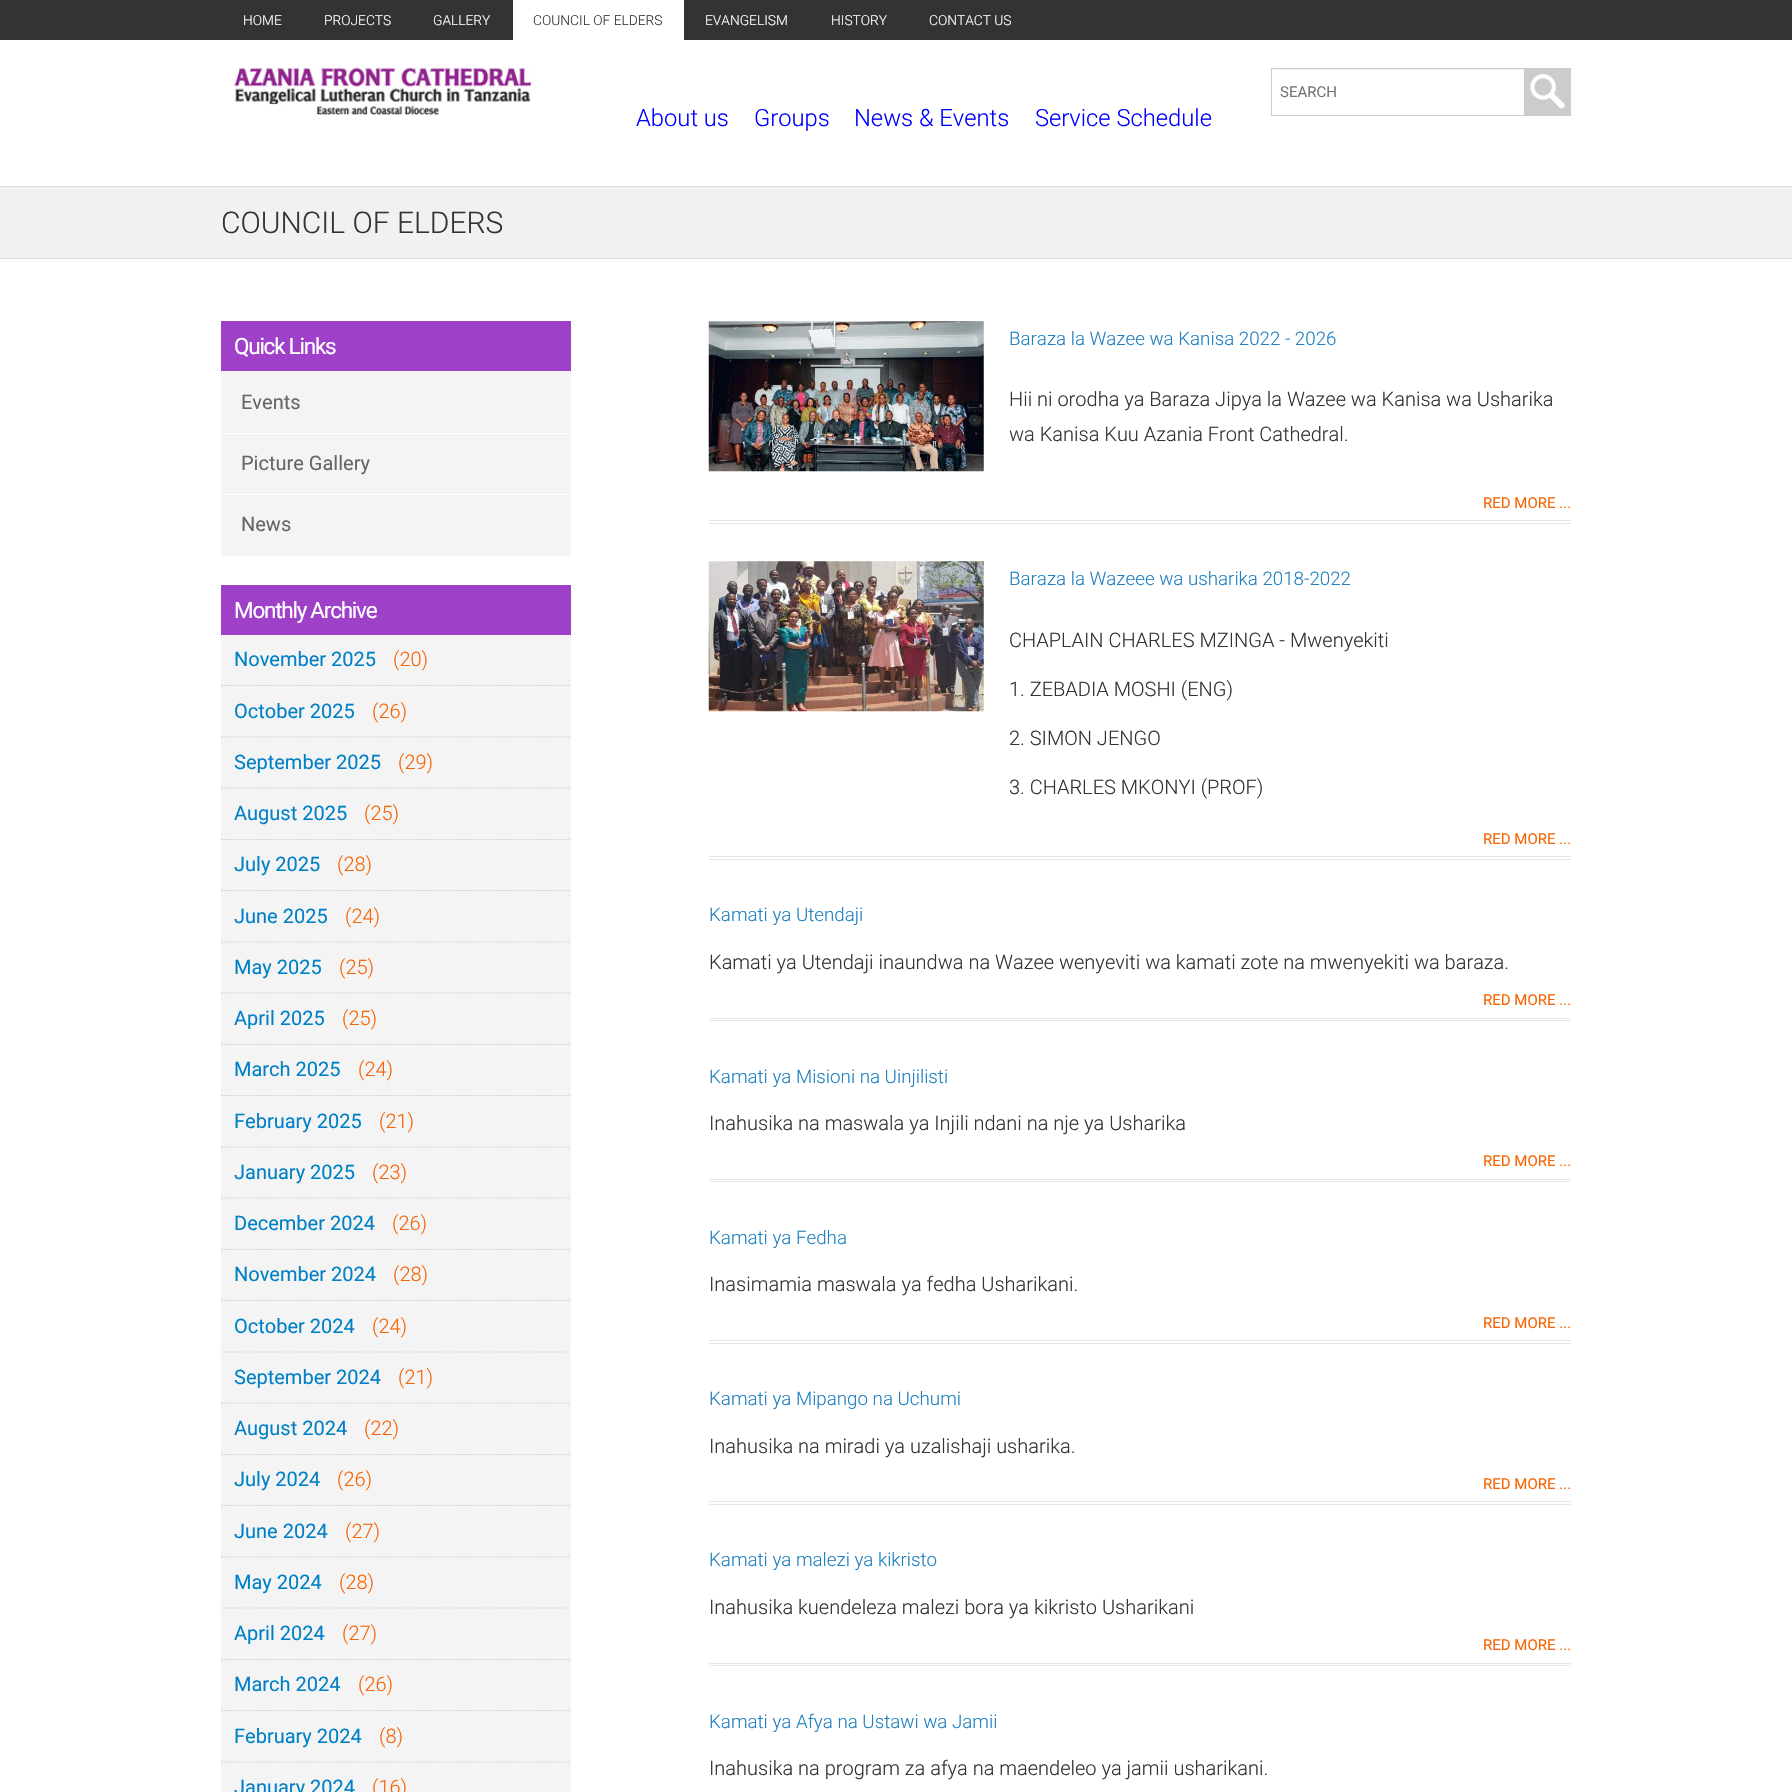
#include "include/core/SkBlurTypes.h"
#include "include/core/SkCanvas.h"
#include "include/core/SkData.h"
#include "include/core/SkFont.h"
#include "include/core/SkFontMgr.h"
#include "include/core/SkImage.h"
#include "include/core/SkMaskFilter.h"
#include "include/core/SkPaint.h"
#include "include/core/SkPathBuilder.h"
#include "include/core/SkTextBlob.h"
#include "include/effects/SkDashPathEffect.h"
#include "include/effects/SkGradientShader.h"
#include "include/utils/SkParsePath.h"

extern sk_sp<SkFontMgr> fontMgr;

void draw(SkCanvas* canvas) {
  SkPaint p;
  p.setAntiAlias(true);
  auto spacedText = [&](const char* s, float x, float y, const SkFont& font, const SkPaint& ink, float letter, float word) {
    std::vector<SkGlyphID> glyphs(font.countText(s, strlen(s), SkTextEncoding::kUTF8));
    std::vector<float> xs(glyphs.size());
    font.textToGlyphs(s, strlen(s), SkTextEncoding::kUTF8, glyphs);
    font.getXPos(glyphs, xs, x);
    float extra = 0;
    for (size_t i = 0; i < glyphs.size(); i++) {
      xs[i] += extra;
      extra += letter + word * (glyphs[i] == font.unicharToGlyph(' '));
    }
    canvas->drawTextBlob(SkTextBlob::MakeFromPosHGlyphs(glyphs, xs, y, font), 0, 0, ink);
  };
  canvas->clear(SK_ColorWHITE);
  p.setColor(SkColorSetRGB(51, 51, 51));
  canvas->drawRect(SkRect::MakeLTRB(0, 0, 1792, 40), p);
  p.setColor(SK_ColorWHITE);
  canvas->drawRect(SkRect::MakeLTRB(513, 0, 684, 40), p);
  canvas->drawImageRect(SkImages::DeferredFromEncodedData(SkData::MakeFromFileName("images/1.png")), SkRect::MakeLTRB(234, 67, 532, 115), SkSamplingOptions());
  p.setColor(SkColorSetRGB(242, 242, 242));
  canvas->drawRect(SkRect::MakeLTRB(1273, 69, 1524, 70), p);
  p.setStyle(SkPaint::kStroke_Style);
  p.setStrokeWidth(1);
  p.setColor(SkColorSetRGB(204, 204, 204));
  canvas->drawRect(SkRect::MakeLTRB(1271.5f, 68.5f, 1570.5f, 115.5f), p);
  p.setStyle(SkPaint::kFill_Style);
  canvas->drawRect(SkRect::MakeLTRB(1524, 69, 1570, 115), p);
  canvas->drawImageRect(SkImages::DeferredFromEncodedData(SkData::MakeFromFileName("images/2.png")), SkRect::MakeLTRB(1530, 74, 1565, 109), SkSamplingOptions());
  p.setColor(SkColorSetRGB(241, 241, 241));
  canvas->drawRect(SkRect::MakeLTRB(0, 187, 1792, 258), p);
  p.setColor(SkColorSetRGB(221, 221, 221));
  canvas->drawRect(SkRect::MakeLTRB(0, 186, 1792, 187), p);
  canvas->drawRect(SkRect::MakeLTRB(0, 258, 1792, 259), p);
  p.setColor(SkColorSetRGB(158, 64, 200));
  canvas->drawRect(SkRect::MakeLTRB(221, 321, 571, 371), p);
  p.setColor(SkColorSetRGB(244, 244, 244));
  canvas->drawRect(SkRect::MakeLTRB(221, 371, 571, 494), p);
  p.setColor(SK_ColorWHITE);
  canvas->drawRect(SkRect::MakeLTRB(221, 433, 571, 434), p);
  p.setColor(SkColorSetRGB(244, 244, 244));
  canvas->drawRect(SkRect::MakeLTRB(570, 433, 571, 495), p);
  canvas->drawRect(SkRect::MakeLTRB(221, 433, 222, 495), p);
  canvas->drawRect(SkRect::MakeLTRB(222, 495, 570, 556), p);
  p.setColor(SK_ColorWHITE);
  canvas->drawRect(SkRect::MakeLTRB(221, 494, 571, 495), p);
  p.setColor(SkColorSetRGB(244, 244, 244));
  canvas->drawRect(SkRect::MakeLTRB(570, 494, 571, 556), p);
  canvas->drawRect(SkRect::MakeLTRB(221, 494, 222, 556), p);
  p.setColor(SkColorSetRGB(158, 64, 200));
  canvas->drawRect(SkRect::MakeLTRB(221, 585, 571, 635), p);
  p.setColor(SkColorSetRGB(244, 244, 244));
  canvas->drawRect(SkRect::MakeLTRB(221, 635, 571, 1792), p);
  p.setStyle(SkPaint::kStroke_Style);
  p.setStrokeWidth(1.2f);
  p.setColor(SkColorSetRGB(204, 204, 204));
  p.setPathEffect(SkDashPathEffect::Make({{1.25f, 1.25f}}, 0));
  canvas->drawPath(SkPathBuilder().moveTo(221, 685.5f).lineTo(571, 685.5f).detach(), p);
  p.setPathEffect(nullptr);
  p.setPathEffect(SkDashPathEffect::Make({{1.25f, 1.25f}}, 0));
  canvas->drawPath(SkPathBuilder().moveTo(221, 737).lineTo(571, 737).detach(), p);
  p.setPathEffect(nullptr);
  p.setPathEffect(SkDashPathEffect::Make({{1.25f, 1.25f}}, 0));
  canvas->drawPath(SkPathBuilder().moveTo(221, 788).lineTo(571, 788).detach(), p);
  p.setPathEffect(nullptr);
  p.setPathEffect(SkDashPathEffect::Make({{1.25f, 1.25f}}, 0));
  canvas->drawPath(SkPathBuilder().moveTo(221, 839.5f).lineTo(571, 839.5f).detach(), p);
  p.setPathEffect(nullptr);
  p.setPathEffect(SkDashPathEffect::Make({{1.25f, 1.25f}}, 0));
  canvas->drawPath(SkPathBuilder().moveTo(221, 890.5f).lineTo(571, 890.5f).detach(), p);
  p.setPathEffect(nullptr);
  p.setPathEffect(SkDashPathEffect::Make({{1.25f, 1.25f}}, 0));
  canvas->drawPath(SkPathBuilder().moveTo(221, 942).lineTo(571, 942).detach(), p);
  p.setPathEffect(nullptr);
  p.setPathEffect(SkDashPathEffect::Make({{1.25f, 1.25f}}, 0));
  canvas->drawPath(SkPathBuilder().moveTo(221, 993).lineTo(571, 993).detach(), p);
  p.setPathEffect(nullptr);
  p.setPathEffect(SkDashPathEffect::Make({{1.25f, 1.25f}}, 0));
  canvas->drawPath(SkPathBuilder().moveTo(221, 1044.5f).lineTo(571, 1044.5f).detach(), p);
  p.setPathEffect(nullptr);
  p.setPathEffect(SkDashPathEffect::Make({{1.25f, 1.25f}}, 0));
  canvas->drawPath(SkPathBuilder().moveTo(221, 1095.5f).lineTo(571, 1095.5f).detach(), p);
  p.setPathEffect(nullptr);
  p.setPathEffect(SkDashPathEffect::Make({{1.25f, 1.25f}}, 0));
  canvas->drawPath(SkPathBuilder().moveTo(221, 1147).lineTo(571, 1147).detach(), p);
  p.setPathEffect(nullptr);
  p.setPathEffect(SkDashPathEffect::Make({{1.25f, 1.25f}}, 0));
  canvas->drawPath(SkPathBuilder().moveTo(221, 1198).lineTo(571, 1198).detach(), p);
  p.setPathEffect(nullptr);
  p.setPathEffect(SkDashPathEffect::Make({{1.25f, 1.25f}}, 0));
  canvas->drawPath(SkPathBuilder().moveTo(221, 1249.5f).lineTo(571, 1249.5f).detach(), p);
  p.setPathEffect(nullptr);
  p.setPathEffect(SkDashPathEffect::Make({{1.25f, 1.25f}}, 0));
  canvas->drawPath(SkPathBuilder().moveTo(221, 1300.5f).lineTo(571, 1300.5f).detach(), p);
  p.setPathEffect(nullptr);
  p.setPathEffect(SkDashPathEffect::Make({{1.25f, 1.25f}}, 0));
  canvas->drawPath(SkPathBuilder().moveTo(221, 1352).lineTo(571, 1352).detach(), p);
  p.setPathEffect(nullptr);
  p.setPathEffect(SkDashPathEffect::Make({{1.25f, 1.25f}}, 0));
  canvas->drawPath(SkPathBuilder().moveTo(221, 1403).lineTo(571, 1403).detach(), p);
  p.setPathEffect(nullptr);
  p.setPathEffect(SkDashPathEffect::Make({{1.25f, 1.25f}}, 0));
  canvas->drawPath(SkPathBuilder().moveTo(221, 1454.5f).lineTo(571, 1454.5f).detach(), p);
  p.setPathEffect(nullptr);
  p.setPathEffect(SkDashPathEffect::Make({{1.25f, 1.25f}}, 0));
  canvas->drawPath(SkPathBuilder().moveTo(221, 1505.5f).lineTo(571, 1505.5f).detach(), p);
  p.setPathEffect(nullptr);
  p.setPathEffect(SkDashPathEffect::Make({{1.25f, 1.25f}}, 0));
  canvas->drawPath(SkPathBuilder().moveTo(221, 1557).lineTo(571, 1557).detach(), p);
  p.setPathEffect(nullptr);
  p.setPathEffect(SkDashPathEffect::Make({{1.25f, 1.25f}}, 0));
  canvas->drawPath(SkPathBuilder().moveTo(221, 1608).lineTo(571, 1608).detach(), p);
  p.setPathEffect(nullptr);
  p.setPathEffect(SkDashPathEffect::Make({{1.25f, 1.25f}}, 0));
  canvas->drawPath(SkPathBuilder().moveTo(221, 1659.5f).lineTo(571, 1659.5f).detach(), p);
  p.setPathEffect(nullptr);
  p.setPathEffect(SkDashPathEffect::Make({{1.25f, 1.25f}}, 0));
  canvas->drawPath(SkPathBuilder().moveTo(221, 1710.5f).lineTo(571, 1710.5f).detach(), p);
  p.setPathEffect(nullptr);
  p.setPathEffect(SkDashPathEffect::Make({{1.25f, 1.25f}}, 0));
  canvas->drawPath(SkPathBuilder().moveTo(221, 1762).lineTo(571, 1762).detach(), p);
  p.setPathEffect(nullptr);
  p.setStyle(SkPaint::kFill_Style);
  p.setColor(SkColorSetRGB(230, 230, 230));
  canvas->drawRect(SkRect::MakeLTRB(709, 520, 1571, 521), p);
  canvas->drawRect(SkRect::MakeLTRB(709, 523, 1571, 524), p);
  canvas->drawImageRect(SkImages::DeferredFromEncodedData(SkData::MakeFromFileName("images/3.png")), SkRect::MakeLTRB(708, 321, 984, 472), SkSamplingOptions());
  canvas->drawRect(SkRect::MakeLTRB(709, 856, 1571, 857), p);
  canvas->drawRect(SkRect::MakeLTRB(709, 859, 1571, 860), p);
  canvas->drawImageRect(SkImages::DeferredFromEncodedData(SkData::MakeFromFileName("images/4.png")), SkRect::MakeLTRB(708, 561, 984, 712), SkSamplingOptions());
  canvas->drawRect(SkRect::MakeLTRB(709, 1018, 1571, 1019), p);
  canvas->drawRect(SkRect::MakeLTRB(709, 1020, 1571, 1021), p);
  canvas->drawRect(SkRect::MakeLTRB(709, 1179, 1571, 1180), p);
  canvas->drawRect(SkRect::MakeLTRB(709, 1181, 1571, 1182), p);
  canvas->drawRect(SkRect::MakeLTRB(709, 1340, 1571, 1341), p);
  canvas->drawRect(SkRect::MakeLTRB(709, 1343, 1571, 1344), p);
  canvas->drawRect(SkRect::MakeLTRB(709, 1501, 1571, 1502), p);
  canvas->drawRect(SkRect::MakeLTRB(709, 1504, 1571, 1505), p);
  canvas->drawRect(SkRect::MakeLTRB(709, 1663, 1571, 1664), p);
  canvas->drawRect(SkRect::MakeLTRB(709, 1665, 1571, 1666), p);
  SkFont font1(fontMgr->matchFamilyStyle("Roboto", SkFontStyle(300, SkFontStyle::kNormal_Width, SkFontStyle::kUpright_Slant)), 13.75f);
  font1.setSubpixel(true);
  p.setColor(SK_ColorWHITE);
  canvas->drawString("HOME", 243, 25, font1, p);
  canvas->drawString("PROJECTS", 324, 25, font1, p);
  canvas->drawString("GALLERY", 433, 25, font1, p);
  p.setColor(SkColorSetRGB(51, 51, 51));
  canvas->drawString("COUNCIL OF ELDERS", 533, 25, font1, p);
  p.setColor(SK_ColorWHITE);
  canvas->drawString("EVANGELISM", 705, 25, font1, p);
  canvas->drawString("HISTORY", 831, 25, font1, p);
  canvas->drawString("CONTACT US", 929, 25, font1, p);
  SkFont font2(fontMgr->matchFamilyStyle("Roboto", SkFontStyle::Normal()), 15);
  font2.setSubpixel(true);
  p.setColor(SkColorSetRGB(117, 117, 117));
  canvas->drawString("SEARCH", 1280, 97, font2, p);
  SkFont font3(fontMgr->matchFamilyStyle("Roboto", SkFontStyle(300, SkFontStyle::kNormal_Width, SkFontStyle::kUpright_Slant)), 23.75f);
  font3.setSubpixel(true);
  p.setColor(SkColorSetRGB(0, 0, 255));
  canvas->drawString("About us", 636, 126, font3, p);
  canvas->drawString("Groups", 754, 126, font3, p);
  canvas->drawString("News & Events", 854, 126, font3, p);
  canvas->drawString("Service Schedule", 1035, 126, font3, p);
  SkFont font4(fontMgr->matchFamilyStyle("Roboto", SkFontStyle(300, SkFontStyle::kNormal_Width, SkFontStyle::kUpright_Slant)), 30);
  font4.setSubpixel(true);
  p.setColor(SkColorSetRGB(51, 51, 51));
  canvas->drawString("COUNCIL OF ELDERS", 221, 233, font4, p);
  SkFont font5(fontMgr->matchFamilyStyle("Roboto", SkFontStyle::Normal()), 22.5f);
  font5.setSubpixel(true);
  p.setColor(SK_ColorWHITE);
  spacedText("Quick Links", 234, 354, font5, p, -1.25f, 0);
  SkFont font6(fontMgr->matchFamilyStyle("Roboto", SkFontStyle::Normal()), 20);
  font6.setSubpixel(true);
  p.setColor(SkColorSetRGB(102, 102, 102));
  canvas->drawString("Events", 241, 409, font6, p);
  canvas->drawString("Picture Gallery", 241, 470, font6, p);
  canvas->drawString("News", 241, 531, font6, p);
  p.setColor(SK_ColorWHITE);
  spacedText("Monthly Archive", 234, 618, font5, p, -1.25f, 0);
  p.setColor(SkColorSetRGB(0, 128, 199));
  canvas->drawString("November 2025", 234, 666, font6, p);
  SkFont font7(fontMgr->matchFamilyStyle("Roboto", SkFontStyle(300, SkFontStyle::kNormal_Width, SkFontStyle::kUpright_Slant)), 20);
  font7.setSubpixel(true);
  p.setColor(SkColorSetRGB(249, 100, 3));
  canvas->drawString("(20)", 393, 666, font7, p);
  p.setColor(SkColorSetRGB(0, 128, 199));
  canvas->drawString("October 2025", 234, 718, font6, p);
  p.setColor(SkColorSetRGB(249, 100, 3));
  canvas->drawString("(26)", 372, 718, font7, p);
  p.setColor(SkColorSetRGB(0, 128, 199));
  canvas->drawString("September 2025", 234, 769, font6, p);
  p.setColor(SkColorSetRGB(249, 100, 3));
  canvas->drawString("(29)", 398, 769, font7, p);
  p.setColor(SkColorSetRGB(0, 128, 199));
  canvas->drawString("August 2025", 234, 820, font6, p);
  p.setColor(SkColorSetRGB(249, 100, 3));
  canvas->drawString("(25)", 364, 820, font7, p);
  p.setColor(SkColorSetRGB(0, 128, 199));
  canvas->drawString("July 2025", 234, 871, font6, p);
  p.setColor(SkColorSetRGB(249, 100, 3));
  canvas->drawString("(28)", 337, 871, font7, p);
  p.setColor(SkColorSetRGB(0, 128, 199));
  canvas->drawString("June 2025", 234, 923, font6, p);
  p.setColor(SkColorSetRGB(249, 100, 3));
  canvas->drawString("(24)", 345, 923, font7, p);
  p.setColor(SkColorSetRGB(0, 128, 199));
  canvas->drawString("May 2025", 234, 974, font6, p);
  p.setColor(SkColorSetRGB(249, 100, 3));
  canvas->drawString("(25)", 339, 974, font7, p);
  p.setColor(SkColorSetRGB(0, 128, 199));
  canvas->drawString("April 2025", 234, 1025, font6, p);
  p.setColor(SkColorSetRGB(249, 100, 3));
  canvas->drawString("(25)", 342, 1025, font7, p);
  p.setColor(SkColorSetRGB(0, 128, 199));
  canvas->drawString("March 2025", 234, 1076, font6, p);
  p.setColor(SkColorSetRGB(249, 100, 3));
  canvas->drawString("(24)", 358, 1076, font7, p);
  p.setColor(SkColorSetRGB(0, 128, 199));
  canvas->drawString("February 2025", 234, 1128, font6, p);
  p.setColor(SkColorSetRGB(249, 100, 3));
  canvas->drawString("(21)", 379, 1128, font7, p);
  p.setColor(SkColorSetRGB(0, 128, 199));
  canvas->drawString("January 2025", 234, 1179, font6, p);
  p.setColor(SkColorSetRGB(249, 100, 3));
  canvas->drawString("(23)", 372, 1179, font7, p);
  p.setColor(SkColorSetRGB(0, 128, 199));
  canvas->drawString("December 2024", 234, 1230, font6, p);
  p.setColor(SkColorSetRGB(249, 100, 3));
  canvas->drawString("(26)", 392, 1230, font7, p);
  p.setColor(SkColorSetRGB(0, 128, 199));
  canvas->drawString("November 2024", 234, 1281, font6, p);
  p.setColor(SkColorSetRGB(249, 100, 3));
  canvas->drawString("(28)", 393, 1281, font7, p);
  p.setColor(SkColorSetRGB(0, 128, 199));
  canvas->drawString("October 2024", 234, 1333, font6, p);
  p.setColor(SkColorSetRGB(249, 100, 3));
  canvas->drawString("(24)", 372, 1333, font7, p);
  p.setColor(SkColorSetRGB(0, 128, 199));
  canvas->drawString("September 2024", 234, 1384, font6, p);
  p.setColor(SkColorSetRGB(249, 100, 3));
  canvas->drawString("(21)", 398, 1384, font7, p);
  p.setColor(SkColorSetRGB(0, 128, 199));
  canvas->drawString("August 2024", 234, 1435, font6, p);
  p.setColor(SkColorSetRGB(249, 100, 3));
  canvas->drawString("(22)", 364, 1435, font7, p);
  p.setColor(SkColorSetRGB(0, 128, 199));
  canvas->drawString("July 2024", 234, 1486, font6, p);
  p.setColor(SkColorSetRGB(249, 100, 3));
  canvas->drawString("(26)", 337, 1486, font7, p);
  p.setColor(SkColorSetRGB(0, 128, 199));
  canvas->drawString("June 2024", 234, 1538, font6, p);
  p.setColor(SkColorSetRGB(249, 100, 3));
  canvas->drawString("(27)", 345, 1538, font7, p);
  p.setColor(SkColorSetRGB(0, 128, 199));
  canvas->drawString("May 2024", 234, 1589, font6, p);
  p.setColor(SkColorSetRGB(249, 100, 3));
  canvas->drawString("(28)", 339, 1589, font7, p);
  p.setColor(SkColorSetRGB(0, 128, 199));
  canvas->drawString("April 2024", 234, 1640, font6, p);
  p.setColor(SkColorSetRGB(249, 100, 3));
  canvas->drawString("(27)", 342, 1640, font7, p);
  p.setColor(SkColorSetRGB(0, 128, 199));
  canvas->drawString("March 2024", 234, 1691, font6, p);
  p.setColor(SkColorSetRGB(249, 100, 3));
  canvas->drawString("(26)", 358, 1691, font7, p);
  p.setColor(SkColorSetRGB(0, 128, 199));
  canvas->drawString("February 2024", 234, 1743, font6, p);
  p.setColor(SkColorSetRGB(249, 100, 3));
  canvas->drawString("(8)", 379, 1743, font7, p);
  p.setColor(SkColorSetRGB(0, 128, 199));
  canvas->drawString("January 2024", 234, 1794, font6, p);
  p.setColor(SkColorSetRGB(249, 100, 3));
  canvas->drawString("(16)", 372, 1794, font7, p);
  SkFont font8(fontMgr->matchFamilyStyle("Roboto", SkFontStyle(300, SkFontStyle::kNormal_Width, SkFontStyle::kUpright_Slant)), 18.75f);
  font8.setSubpixel(true);
  p.setColor(SkColorSetRGB(30, 128, 192));
  canvas->drawString("Baraza la Wazee wa Kanisa 2022 - 2026", 1009, 345, font8, p);
  p.setColor(SkColorSetRGB(51, 51, 51));
  canvas->drawString("Hii ni orodha ya Baraza Jipya la Wazee wa Kanisa wa Usharika", 1009, 406, font7, p);
  canvas->drawString("wa Kanisa Kuu Azania Front Cathedral.", 1009, 441, font7, p);
  p.setColor(SkColorSetRGB(249, 100, 3));
  canvas->drawString("RED MORE ...", 1483, 508, font2, p);
  p.setColor(SkColorSetRGB(30, 128, 192));
  canvas->drawString("Baraza la Wazeee wa usharika 2018-2022", 1009, 585, font8, p);
  p.setColor(SkColorSetRGB(51, 51, 51));
  canvas->drawString("CHAPLAIN CHARLES MZINGA - Mwenyekiti", 1009, 647, font7, p);
  canvas->drawString("1. ZEBADIA MOSHI (ENG)", 1009, 696, font7, p);
  canvas->drawString("2. SIMON JENGO", 1009, 745, font7, p);
  canvas->drawString("3. CHARLES MKONYI (PROF)", 1009, 794, font7, p);
  p.setColor(SkColorSetRGB(249, 100, 3));
  canvas->drawString("RED MORE ...", 1483, 844, font2, p);
  p.setColor(SkColorSetRGB(30, 128, 192));
  canvas->drawString("Kamati ya Utendaji", 709, 921, font8, p);
  p.setColor(SkColorSetRGB(51, 51, 51));
  canvas->drawString("Kamati ya Utendaji inaundwa na Wazee wenyeviti wa kamati zote na mwenyekiti wa baraza.", 709, 969, font7, p);
  p.setColor(SkColorSetRGB(249, 100, 3));
  canvas->drawString("RED MORE ...", 1483, 1005, font2, p);
  p.setColor(SkColorSetRGB(30, 128, 192));
  canvas->drawString("Kamati ya Misioni na Uinjilisti", 709, 1083, font8, p);
  p.setColor(SkColorSetRGB(51, 51, 51));
  canvas->drawString("Inahusika na maswala ya Injili ndani na nje ya Usharika", 709, 1130, font7, p);
  p.setColor(SkColorSetRGB(249, 100, 3));
  canvas->drawString("RED MORE ...", 1483, 1166, font2, p);
  p.setColor(SkColorSetRGB(30, 128, 192));
  canvas->drawString("Kamati ya Fedha", 709, 1244, font8, p);
  p.setColor(SkColorSetRGB(51, 51, 51));
  canvas->drawString("Inasimamia maswala ya fedha Usharikani.", 709, 1291, font7, p);
  p.setColor(SkColorSetRGB(249, 100, 3));
  canvas->drawString("RED MORE ...", 1483, 1328, font2, p);
  p.setColor(SkColorSetRGB(30, 128, 192));
  canvas->drawString("Kamati ya Mipango na Uchumi", 709, 1405, font8, p);
  p.setColor(SkColorSetRGB(51, 51, 51));
  canvas->drawString("Inahusika na miradi ya uzalishaji usharika.", 709, 1453, font7, p);
  p.setColor(SkColorSetRGB(249, 100, 3));
  canvas->drawString("RED MORE ...", 1483, 1489, font2, p);
  p.setColor(SkColorSetRGB(30, 128, 192));
  canvas->drawString("Kamati ya malezi ya kikristo", 709, 1566, font8, p);
  p.setColor(SkColorSetRGB(51, 51, 51));
  canvas->drawString("Inahusika kuendeleza malezi bora ya kikristo Usharikani", 709, 1614, font7, p);
  p.setColor(SkColorSetRGB(249, 100, 3));
  canvas->drawString("RED MORE ...", 1483, 1650, font2, p);
  p.setColor(SkColorSetRGB(30, 128, 192));
  canvas->drawString("Kamati ya Afya na Ustawi wa Jamii", 709, 1728, font8, p);
  p.setColor(SkColorSetRGB(51, 51, 51));
  canvas->drawString("Inahusika na program za afya na maendeleo ya jamii usharikani.", 709, 1775, font7, p);
}
